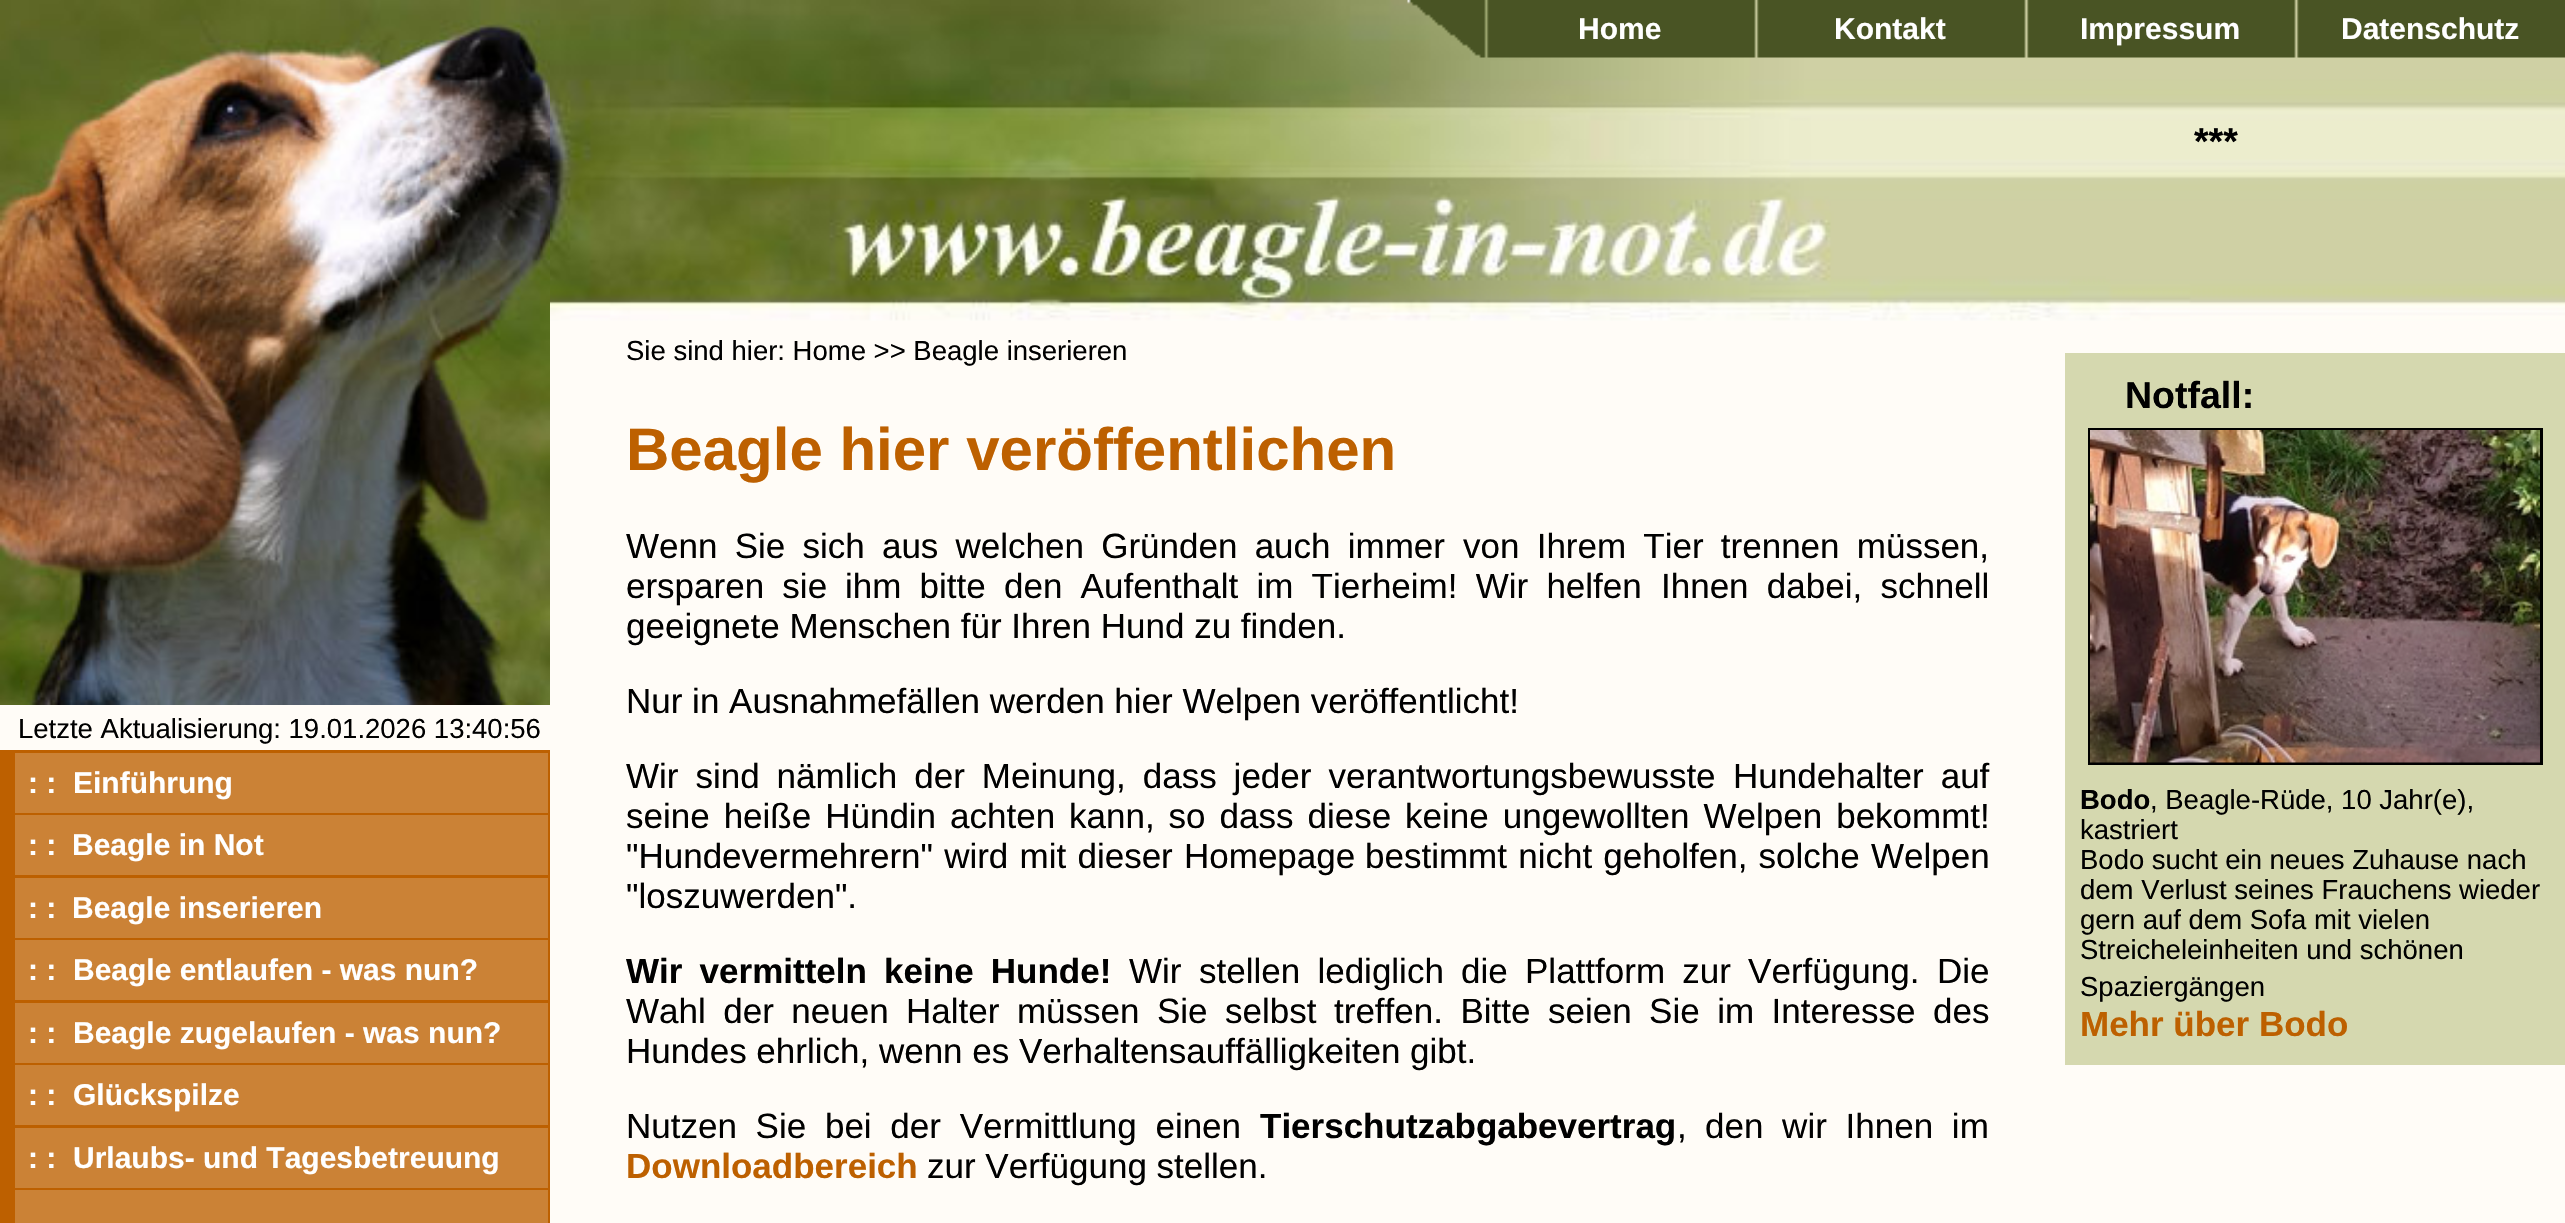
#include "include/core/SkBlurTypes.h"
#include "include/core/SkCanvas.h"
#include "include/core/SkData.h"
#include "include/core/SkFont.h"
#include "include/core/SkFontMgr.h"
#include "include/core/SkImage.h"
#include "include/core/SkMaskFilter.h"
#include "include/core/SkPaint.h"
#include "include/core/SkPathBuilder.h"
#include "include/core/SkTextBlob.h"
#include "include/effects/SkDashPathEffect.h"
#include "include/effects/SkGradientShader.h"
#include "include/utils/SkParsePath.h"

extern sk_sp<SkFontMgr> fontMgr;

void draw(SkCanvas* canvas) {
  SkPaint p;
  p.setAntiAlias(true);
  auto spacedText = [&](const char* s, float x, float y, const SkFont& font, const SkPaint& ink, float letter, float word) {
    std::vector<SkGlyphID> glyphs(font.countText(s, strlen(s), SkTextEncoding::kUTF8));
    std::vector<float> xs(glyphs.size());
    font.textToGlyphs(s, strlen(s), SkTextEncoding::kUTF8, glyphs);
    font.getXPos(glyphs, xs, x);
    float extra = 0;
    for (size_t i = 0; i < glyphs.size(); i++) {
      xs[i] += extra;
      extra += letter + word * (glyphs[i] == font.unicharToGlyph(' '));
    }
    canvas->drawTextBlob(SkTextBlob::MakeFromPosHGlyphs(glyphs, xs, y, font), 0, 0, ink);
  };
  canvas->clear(SkColorSetRGB(255, 252, 247));
  p.setColor(SkColorSetRGB(189, 96, 0));
  canvas->drawRect(SkRect::MakeLTRB(0, 750, 550, 1223), p);
  canvas->drawImageRect(SkImages::DeferredFromEncodedData(SkData::MakeFromFileName("images/1.png")), SkRect::MakeLTRB(0, 0, 550, 705), SkSamplingOptions());
  p.setColor(SkColorSetRGB(203, 130, 54));
  canvas->drawRect(SkRect::MakeLTRB(15, 753, 548, 813), p);
  canvas->drawRect(SkRect::MakeLTRB(15, 815, 548, 875), p);
  canvas->drawRect(SkRect::MakeLTRB(15, 878, 548, 938), p);
  canvas->drawRect(SkRect::MakeLTRB(15, 940, 548, 1000), p);
  canvas->drawRect(SkRect::MakeLTRB(15, 1003, 548, 1063), p);
  canvas->drawRect(SkRect::MakeLTRB(15, 1065, 548, 1125), p);
  canvas->drawRect(SkRect::MakeLTRB(15, 1128, 548, 1188), p);
  canvas->drawRect(SkRect::MakeLTRB(15, 1190, 548, 1223), p);
  canvas->drawImageRect(SkImages::DeferredFromEncodedData(SkData::MakeFromFileName("images/2.png")), SkRect::MakeLTRB(550, 0, 2565, 321), SkSamplingOptions());
  canvas->drawImageRect(SkImages::DeferredFromEncodedData(SkData::MakeFromFileName("images/3.png")), SkRect::MakeLTRB(1407, 0, 2565, 58), SkSamplingOptions());
  p.setColor(SkColorSetRGB(213, 216, 175));
  canvas->drawRect(SkRect::MakeLTRB(2065, 353, 2565, 1065), p);
  p.setStyle(SkPaint::kStroke_Style);
  p.setStrokeWidth(3);
  p.setColor(SK_ColorBLACK);
  canvas->drawRect(SkRect::MakeLTRB(2089.5f, 429.5f, 2541.5f, 763.5f), p);
  canvas->drawImageRect(SkImages::DeferredFromEncodedData(SkData::MakeFromFileName("images/4.png")), SkRect::MakeLTRB(2090, 430, 2540, 763), SkSamplingOptions());
  SkFont font1(fontMgr->matchFamilyStyle("Liberation Sans", SkFontStyle::Normal()), 27.5f);
  font1.setSubpixel(true);
  p.setStyle(SkPaint::kFill_Style);
  canvas->drawString("Letzte Aktualisierung: 19.01.2026 13:40:56", 18, 738, font1, p);
  SkFont font2(fontMgr->matchFamilyStyle("Liberation Sans", SkFontStyle::Bold()), 30);
  font2.setSubpixel(true);
  p.setColor(SK_ColorWHITE);
  canvas->drawString(": :  Einführung", 28, 793, font2, p);
  canvas->drawString(": :", 28, 855, font2, p);
  canvas->drawString("Beagle in Not", 72, 855, font2, p);
  canvas->drawString(": :", 28, 918, font2, p);
  canvas->drawString("Beagle inserieren", 72, 918, font2, p);
  canvas->drawString(": :  Beagle entlaufen - was nun?", 28, 980, font2, p);
  canvas->drawString(": :  Beagle zugelaufen - was nun?", 28, 1043, font2, p);
  canvas->drawString(": :  Glückspilze", 28, 1105, font2, p);
  canvas->drawString(": :  Urlaubs- und Tagesbetreuung", 28, 1168, font2, p);
  canvas->drawString("Home", 1578, 39, font2, p);
  canvas->drawString("Kontakt", 1834, 39, font2, p);
  canvas->drawString("Impressum", 2080, 39, font2, p);
  canvas->drawString("Datenschutz", 2341, 39, font2, p);
  SkFont font3(fontMgr->matchFamilyStyle("Liberation Sans", SkFontStyle::Bold()), 37.5f);
  font3.setSubpixel(true);
  p.setColor(SK_ColorBLACK);
  canvas->drawString("***", 2194, 154, font3, p);
  canvas->drawString("Sie sind hier: Home >> Beagle inserieren", 626, 360, font1, p);
  SkFont font4(fontMgr->matchFamilyStyle("Liberation Sans", SkFontStyle::Bold()), 60);
  font4.setSubpixel(true);
  p.setColor(SkColorSetRGB(189, 96, 0));
  canvas->drawString("Beagle hier veröffentlichen", 626, 470, font4, p);
  SkFont font5(fontMgr->matchFamilyStyle("Liberation Sans", SkFontStyle::Normal()), 35);
  font5.setSubpixel(true);
  p.setColor(SK_ColorBLACK);
  spacedText("Wenn Sie sich aus welchen Gründen auch immer", 626, 558, font5, p, 0, 7.5f);
  spacedText("von Ihrem Tier trennen müssen,", 1463, 558, font5, p, 0, 7.5f);
  spacedText("ersparen sie", 626, 598, font5, p, 0, 8.5f);
  spacedText("ihm bitte den Aufenthalt im Tierheim! Wir helfen", 845, 598, font5, p, 0, 8.5f);
  spacedText("Ihnen dabei, schnell", 1661, 598, font5, p, 0, 8.5f);
  canvas->drawString("geeignete Menschen für Ihren Hund zu finden.", 626, 638, font5, p);
  canvas->drawString("Nur in Ausnahmefällen werden hier Welpen veröffentlicht!", 626, 713, font5, p);
  spacedText("Wir sind nämlich der Meinung, dass jeder verantwortungsbewusste", 626, 788, font5, p, 0, 7.25f);
  spacedText("Hundehalter auf", 1733, 788, font5, p, 0, 7.25f);
  spacedText("seine heiße Hündin achten", 626, 828, font5, p, 0, 4.25f);
  spacedText("kann, so dass diese keine ungewollten Welpen bekommt!", 1069, 828, font5, p, 0, 4.25f);
  spacedText("\"Hundevermehrern\" wird mit dieser Homepage", 626, 868, font5, p, 0, 1.5f);
  spacedText("bestimmt nicht geholfen, solche Welpen", 1365, 868, font5, p, 0, 1.5f);
  canvas->drawString("\"loszuwerden\".", 626, 908, font5, p);
  SkFont font6(fontMgr->matchFamilyStyle("Liberation Sans", SkFontStyle::Bold()), 35);
  font6.setSubpixel(true);
  spacedText("Wir vermitteln keine Hunde!", 626, 983, font6, p, 0, 7.5f);
  canvas->drawString("Wir", 1129, 983, font5, p);
  spacedText("stellen lediglich die Plattform zur Verfügung.", 1199, 983, font5, p, 0, 7.5f);
  canvas->drawString("Die", 1937, 983, font5, p);
  spacedText("Wahl der neuen Halter müssen Sie selbst", 626, 1023, font5, p, 0, 7.75f);
  spacedText("treffen. Bitte seien Sie im Interesse des", 1334, 1023, font5, p, 0, 7.75f);
  canvas->drawString("Hundes ehrlich, wenn es Verhaltensauffälligkeiten gibt.", 626, 1063, font5, p);
  spacedText("Nutzen Sie bei der Vermittlung einen", 626, 1138, font5, p, 0, 9);
  canvas->drawString("Tierschutzabgabevertrag", 1260, 1138, font6, p);
  canvas->drawString(",", 1677, 1138, font5, p);
  spacedText("den wir Ihnen im", 1705, 1138, font5, p, 0, 9);
  p.setColor(SkColorSetRGB(189, 96, 0));
  canvas->drawString("Downloadbereich", 626, 1178, font6, p);
  p.setColor(SK_ColorBLACK);
  canvas->drawString("zur Verfügung stellen.", 927, 1178, font5, p);
  canvas->drawString("Notfall:", 2125, 408, font3, p);
  SkFont font7(fontMgr->matchFamilyStyle("Liberation Sans", SkFontStyle::Bold()), 27.5f);
  font7.setSubpixel(true);
  canvas->drawString("Bodo", 2080, 809, font7, p);
  canvas->drawString(", Beagle-Rüde, 10 Jahr(e),", 2150, 809, font1, p);
  canvas->drawString("kastriert", 2080, 839, font1, p);
  canvas->drawString("Bodo sucht ein neues Zuhause nach", 2080, 869, font1, p);
  canvas->drawString("dem Verlust seines Frauchens wieder", 2080, 899, font1, p);
  canvas->drawString("gern auf dem Sofa mit vielen", 2080, 929, font1, p);
  canvas->drawString("Streicheleinheiten und schönen", 2080, 959, font1, p);
  canvas->drawString("Spaziergängen", 2080, 996, font1, p);
  p.setColor(SkColorSetRGB(189, 96, 0));
  canvas->drawString("Mehr über Bodo", 2080, 1036, font6, p);
}
